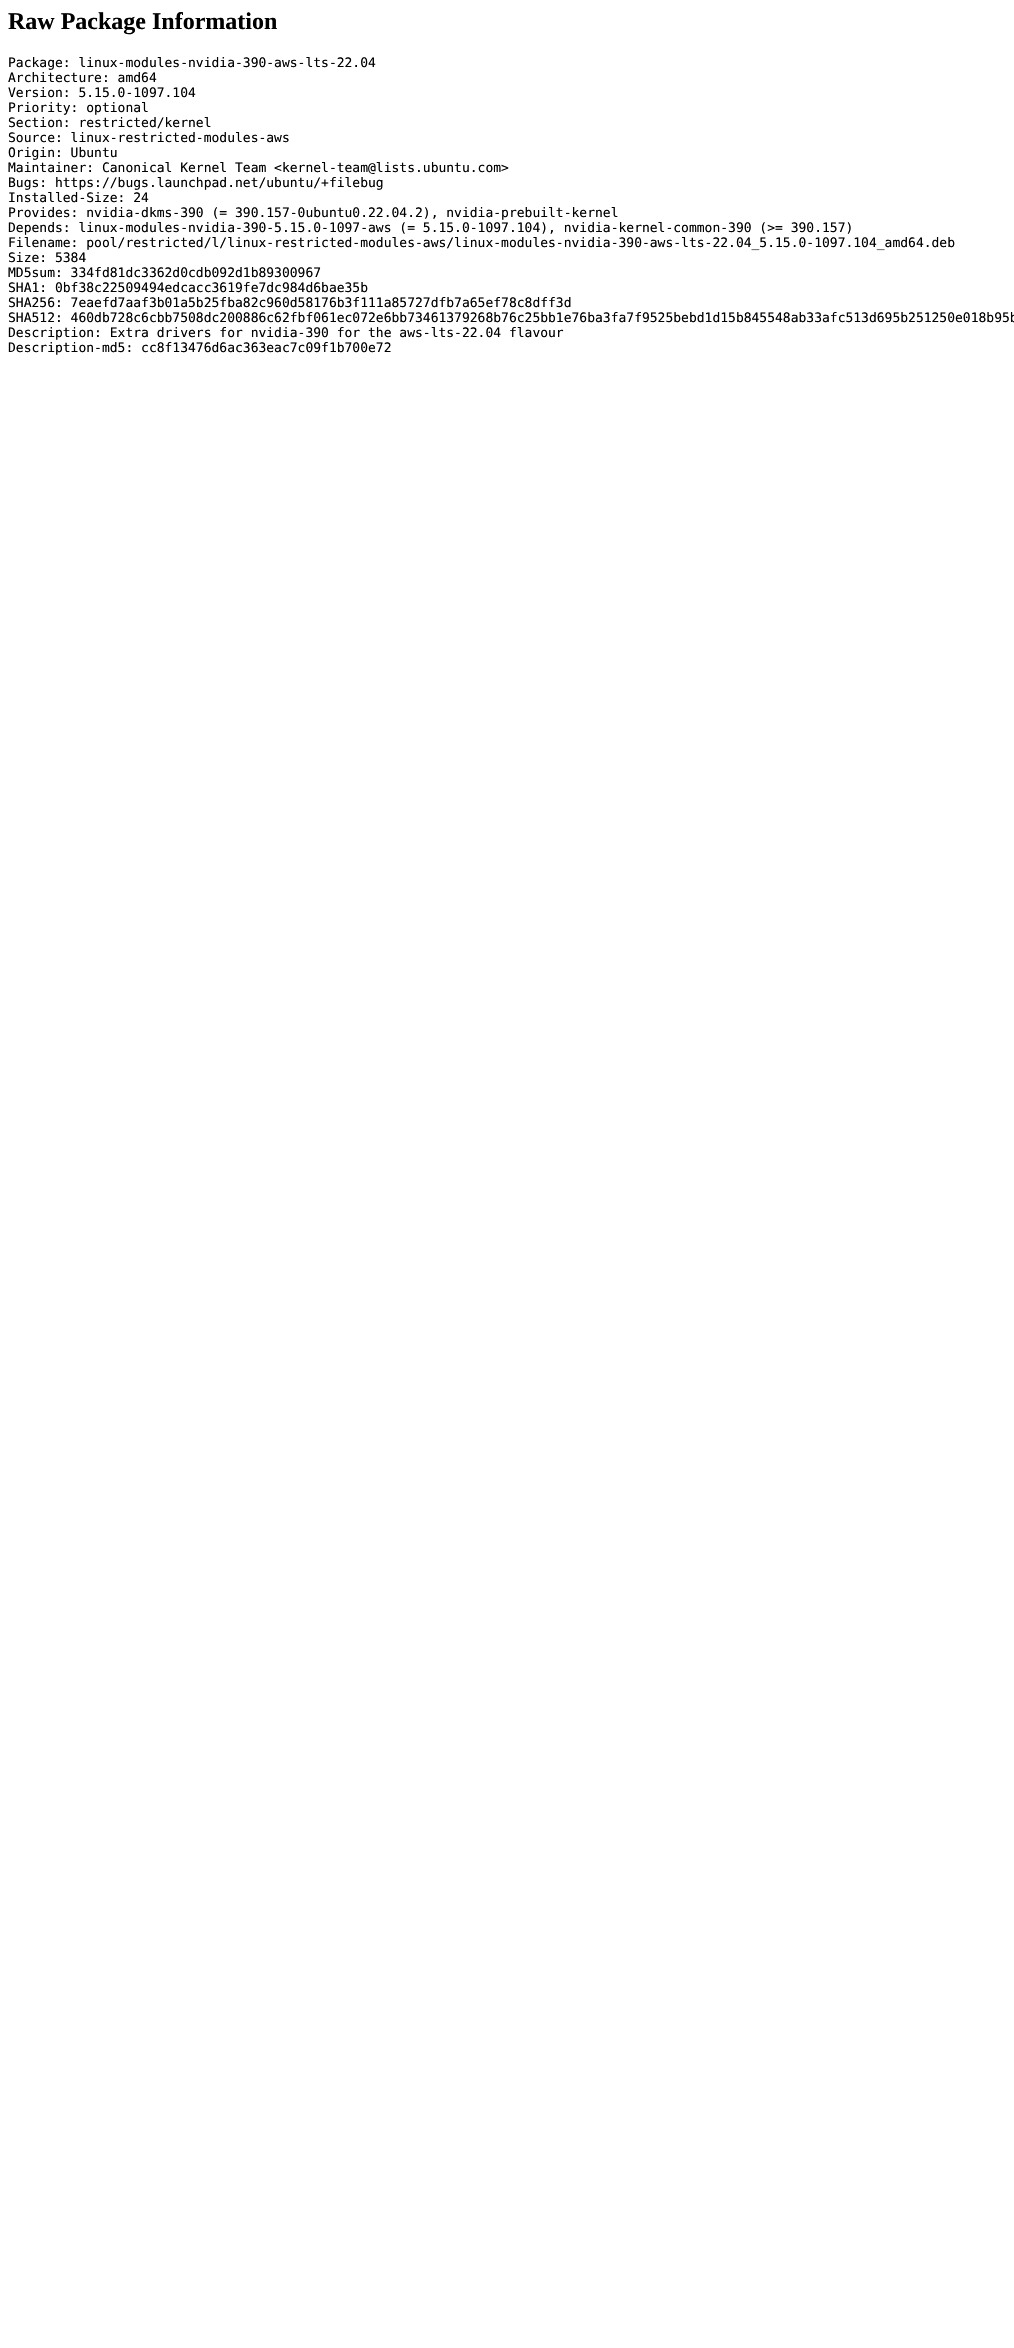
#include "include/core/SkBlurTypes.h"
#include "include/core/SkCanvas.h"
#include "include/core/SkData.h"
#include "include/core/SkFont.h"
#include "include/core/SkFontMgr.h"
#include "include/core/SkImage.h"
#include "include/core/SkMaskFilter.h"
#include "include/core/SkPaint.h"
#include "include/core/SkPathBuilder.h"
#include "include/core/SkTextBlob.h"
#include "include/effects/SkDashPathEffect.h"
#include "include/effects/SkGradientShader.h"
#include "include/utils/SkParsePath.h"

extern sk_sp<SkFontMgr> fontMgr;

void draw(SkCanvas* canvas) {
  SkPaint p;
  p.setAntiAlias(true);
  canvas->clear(SK_ColorWHITE);
  SkFont font1(fontMgr->matchFamilyStyle("Liberation Serif", SkFontStyle::Bold()), 24);
  font1.setSubpixel(true);
  p.setColor(SK_ColorBLACK);
  canvas->drawString("Raw Package Information", 8, 29, font1, p);
  SkFont font2(fontMgr->matchFamilyStyle("DejaVu Sans Mono", SkFontStyle::Normal()), 13);
  font2.setSubpixel(true);
  canvas->drawString("Package: linux-modules-nvidia-390-aws-lts-22.04", 8, 67, font2, p);
  canvas->drawString("Architecture: amd64", 8, 82, font2, p);
  canvas->drawString("Version: 5.15.0-1097.104", 8, 97, font2, p);
  canvas->drawString("Priority: optional", 8, 112, font2, p);
  canvas->drawString("Section: restricted/kernel", 8, 127, font2, p);
  canvas->drawString("Source: linux-restricted-modules-aws", 8, 142, font2, p);
  canvas->drawString("Origin: Ubuntu", 8, 157, font2, p);
  canvas->drawString("Maintainer: Canonical Kernel Team <kernel-team@lists.ubuntu.com>", 8, 172, font2, p);
  canvas->drawString("Bugs: https://bugs.launchpad.net/ubuntu/+filebug", 8, 187, font2, p);
  canvas->drawString("Installed-Size: 24", 8, 202, font2, p);
  canvas->drawString("Provides: nvidia-dkms-390 (= 390.157-0ubuntu0.22.04.2), nvidia-prebuilt-kernel", 8, 217, font2, p);
  canvas->drawString("Depends: linux-modules-nvidia-390-5.15.0-1097-aws (= 5.15.0-1097.104), nvidia-kernel-common-390 (>= 390.157)", 8, 232, font2, p);
  canvas->drawString("Filename: pool/restricted/l/linux-restricted-modules-aws/linux-modules-nvidia-390-aws-lts-22.04_5.15.0-1097.104_amd64.deb", 8, 247, font2, p);
  canvas->drawString("Size: 5384", 8, 262, font2, p);
  canvas->drawString("MD5sum: 334fd81dc3362d0cdb092d1b89300967", 8, 277, font2, p);
  canvas->drawString("SHA1: 0bf38c22509494edcacc3619fe7dc984d6bae35b", 8, 292, font2, p);
  canvas->drawString("SHA256: 7eaefd7aaf3b01a5b25fba82c960d58176b3f111a85727dfb7a65ef78c8dff3d", 8, 307, font2, p);
  canvas->drawString("SHA512: 460db728c6cbb7508dc200886c62fbf061ec072e6bb73461379268b76c25bb1e76ba3fa7f9525bebd1d15b845548ab33afc513d695b251250e018b95b", 8, 322, font2, p);
  canvas->drawString("Description: Extra drivers for nvidia-390 for the aws-lts-22.04 flavour", 8, 337, font2, p);
  canvas->drawString("Description-md5: cc8f13476d6ac363eac7c09f1b700e72", 8, 352, font2, p);
}
